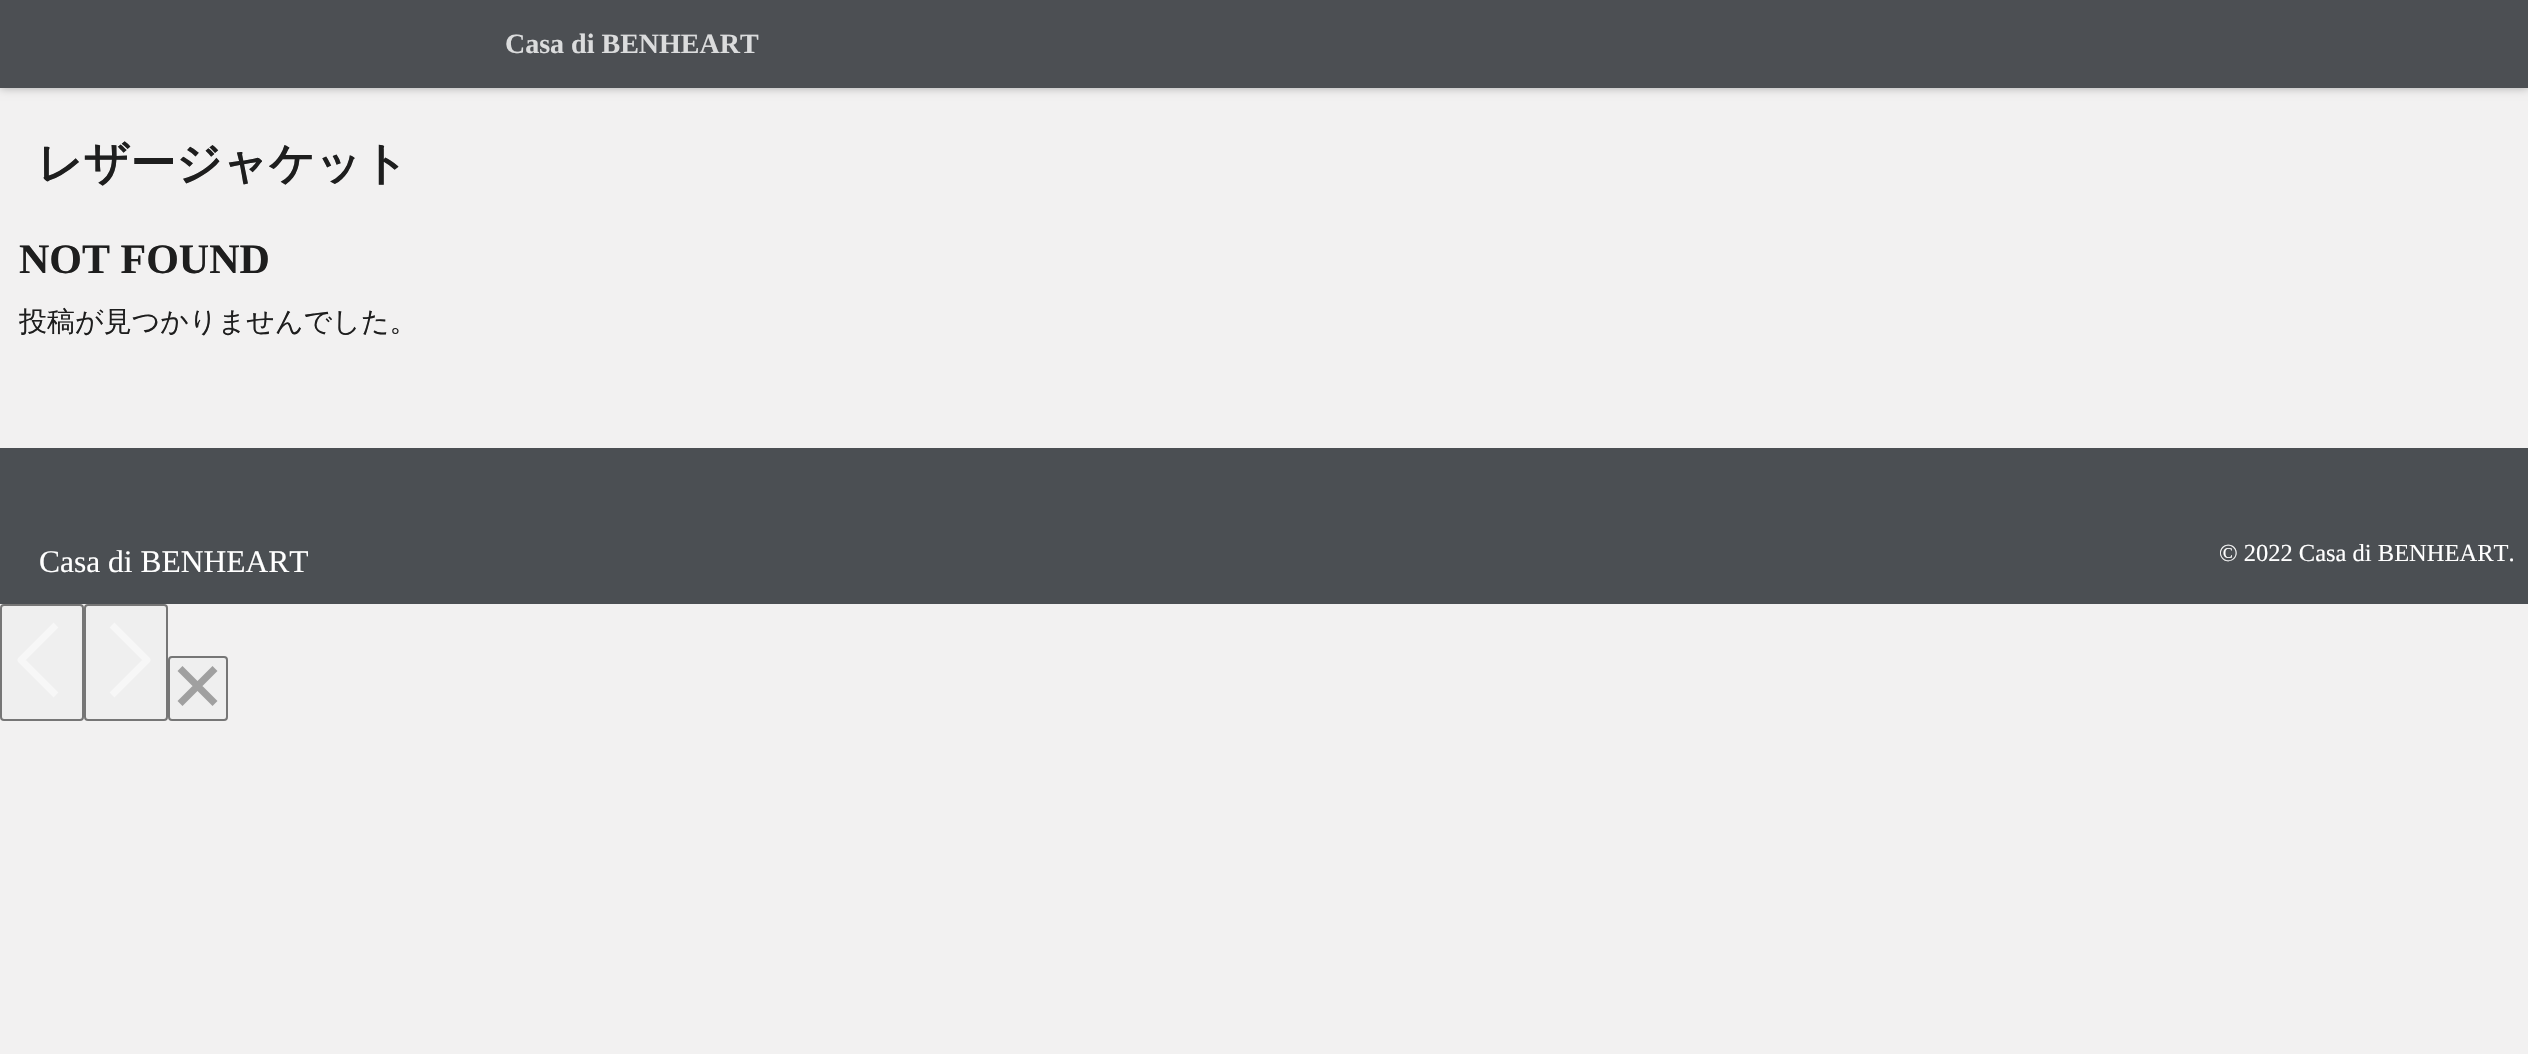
#include "include/core/SkBlurTypes.h"
#include "include/core/SkCanvas.h"
#include "include/core/SkData.h"
#include "include/core/SkFont.h"
#include "include/core/SkFontMgr.h"
#include "include/core/SkImage.h"
#include "include/core/SkMaskFilter.h"
#include "include/core/SkPaint.h"
#include "include/core/SkPathBuilder.h"
#include "include/core/SkTextBlob.h"
#include "include/effects/SkDashPathEffect.h"
#include "include/effects/SkGradientShader.h"
#include "include/utils/SkParsePath.h"

extern sk_sp<SkFontMgr> fontMgr;

void draw(SkCanvas* canvas) {
  SkPaint p;
  p.setAntiAlias(true);
  canvas->clear(SkColorSetRGB(242, 241, 241));
  p.setColor(SkColorSetRGB(169, 169, 169));
  p.setMaskFilter(SkMaskFilter::MakeBlur(kNormal_SkBlurStyle, 4.5f));
  canvas->drawRect(SkRect::MakeLTRB(0, 0, 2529, 88), p);
  p.setMaskFilter(nullptr);
  p.setColor(SkColorSetRGB(76, 79, 83));
  canvas->drawRect(SkRect::MakeLTRB(0, 0, 2528, 88), p);
  p.setColor(SkColorSetRGB(75, 79, 83));
  canvas->drawRect(SkRect::MakeLTRB(0, 448, 2528, 604), p);
  p.setColor(SkColorSetRGB(239, 239, 239));
  canvas->drawRoundRect(SkRect::MakeLTRB(1, 605, 83, 720), 3, 3, p);
  p.setStyle(SkPaint::kStroke_Style);
  p.setStrokeWidth(2);
  p.setColor(SkColorSetRGB(118, 118, 118));
  canvas->drawRoundRect(SkRect::MakeLTRB(1, 605, 83, 720), 3, 3, p);
  p.setStrokeWidth(7);
  p.setStrokeJoin(SkPaint::kRound_Join);
  p.setColor(SkColorSetRGB(247, 247, 247));
  canvas->drawPath(SkPathBuilder().moveTo(56, 625).lineTo(21, 660).lineTo(56, 695).detach(), p);
  p.setStyle(SkPaint::kFill_Style);
  p.setColor(SkColorSetRGB(239, 239, 239));
  canvas->drawRoundRect(SkRect::MakeLTRB(85, 605, 167, 720), 3, 3, p);
  p.setStyle(SkPaint::kStroke_Style);
  p.setStrokeWidth(2);
  p.setStrokeJoin(SkPaint::kMiter_Join);
  p.setColor(SkColorSetRGB(118, 118, 118));
  canvas->drawRoundRect(SkRect::MakeLTRB(85, 605, 167, 720), 3, 3, p);
  p.setStrokeWidth(7);
  p.setStrokeJoin(SkPaint::kRound_Join);
  p.setColor(SkColorSetRGB(247, 247, 247));
  canvas->drawPath(SkPathBuilder().moveTo(112, 625).lineTo(147, 660).lineTo(112, 695).detach(), p);
  p.setStyle(SkPaint::kFill_Style);
  p.setColor(SkColorSetRGB(239, 239, 239));
  canvas->drawRoundRect(SkRect::MakeLTRB(169, 657, 227, 720), 3, 3, p);
  p.setStyle(SkPaint::kStroke_Style);
  p.setStrokeWidth(2);
  p.setStrokeJoin(SkPaint::kMiter_Join);
  p.setColor(SkColorSetRGB(118, 118, 118));
  canvas->drawRoundRect(SkRect::MakeLTRB(169, 657, 227, 720), 3, 3, p);
  p.setStrokeWidth(7);
  p.setColor(SkColorSetRGB(160, 160, 160));
  canvas->drawPath(SkPathBuilder().moveTo(180, 668.5f).lineTo(215, 703.5f).moveTo(180, 703.5f).lineTo(215, 668.5f).detach(), p);
  SkFont font1(fontMgr->matchFamilyStyle("Liberation Serif", SkFontStyle::Bold()), 28);
  font1.setSubpixel(true);
  p.setStyle(SkPaint::kFill_Style);
  p.setColor(SkColorSetRGB(219, 220, 221));
  canvas->drawString("Casa di BENHEART", 505, 53, font1, p);
  SkFont font2(fontMgr->matchFamilyStyle("WenQuanYi Zen Hei", SkFontStyle::Bold()), 45.5f);
  font2.setSubpixel(true);
  p.setColor(SkColorSetRGB(30, 30, 30));
  canvas->drawString("レザージャケット", 37, 179, font2, p);
  SkFont font3(fontMgr->matchFamilyStyle("Liberation Serif", SkFontStyle::Bold()), 42);
  font3.setSubpixel(true);
  canvas->drawString("NOT FOUND", 19, 273, font3, p);
  SkFont font4(fontMgr->matchFamilyStyle("WenQuanYi Zen Hei", SkFontStyle(500, SkFontStyle::kNormal_Width, SkFontStyle::kUpright_Slant)), 28);
  font4.setSubpixel(true);
  canvas->drawString("投稿が見つかりませんでした。", 19, 331, font4, p);
  SkFont font5(fontMgr->matchFamilyStyle("Liberation Serif", SkFontStyle::Normal()), 31.5f);
  font5.setSubpixel(true);
  p.setColor(SK_ColorWHITE);
  canvas->drawString("Casa di BENHEART", 39, 572, font5, p);
  SkFont font6(fontMgr->matchFamilyStyle("Liberation Serif", SkFontStyle::Normal()), 24.5f);
  font6.setSubpixel(true);
  canvas->drawString("© 2022 Casa di BENHEART.", 2219, 561, font6, p);
}
